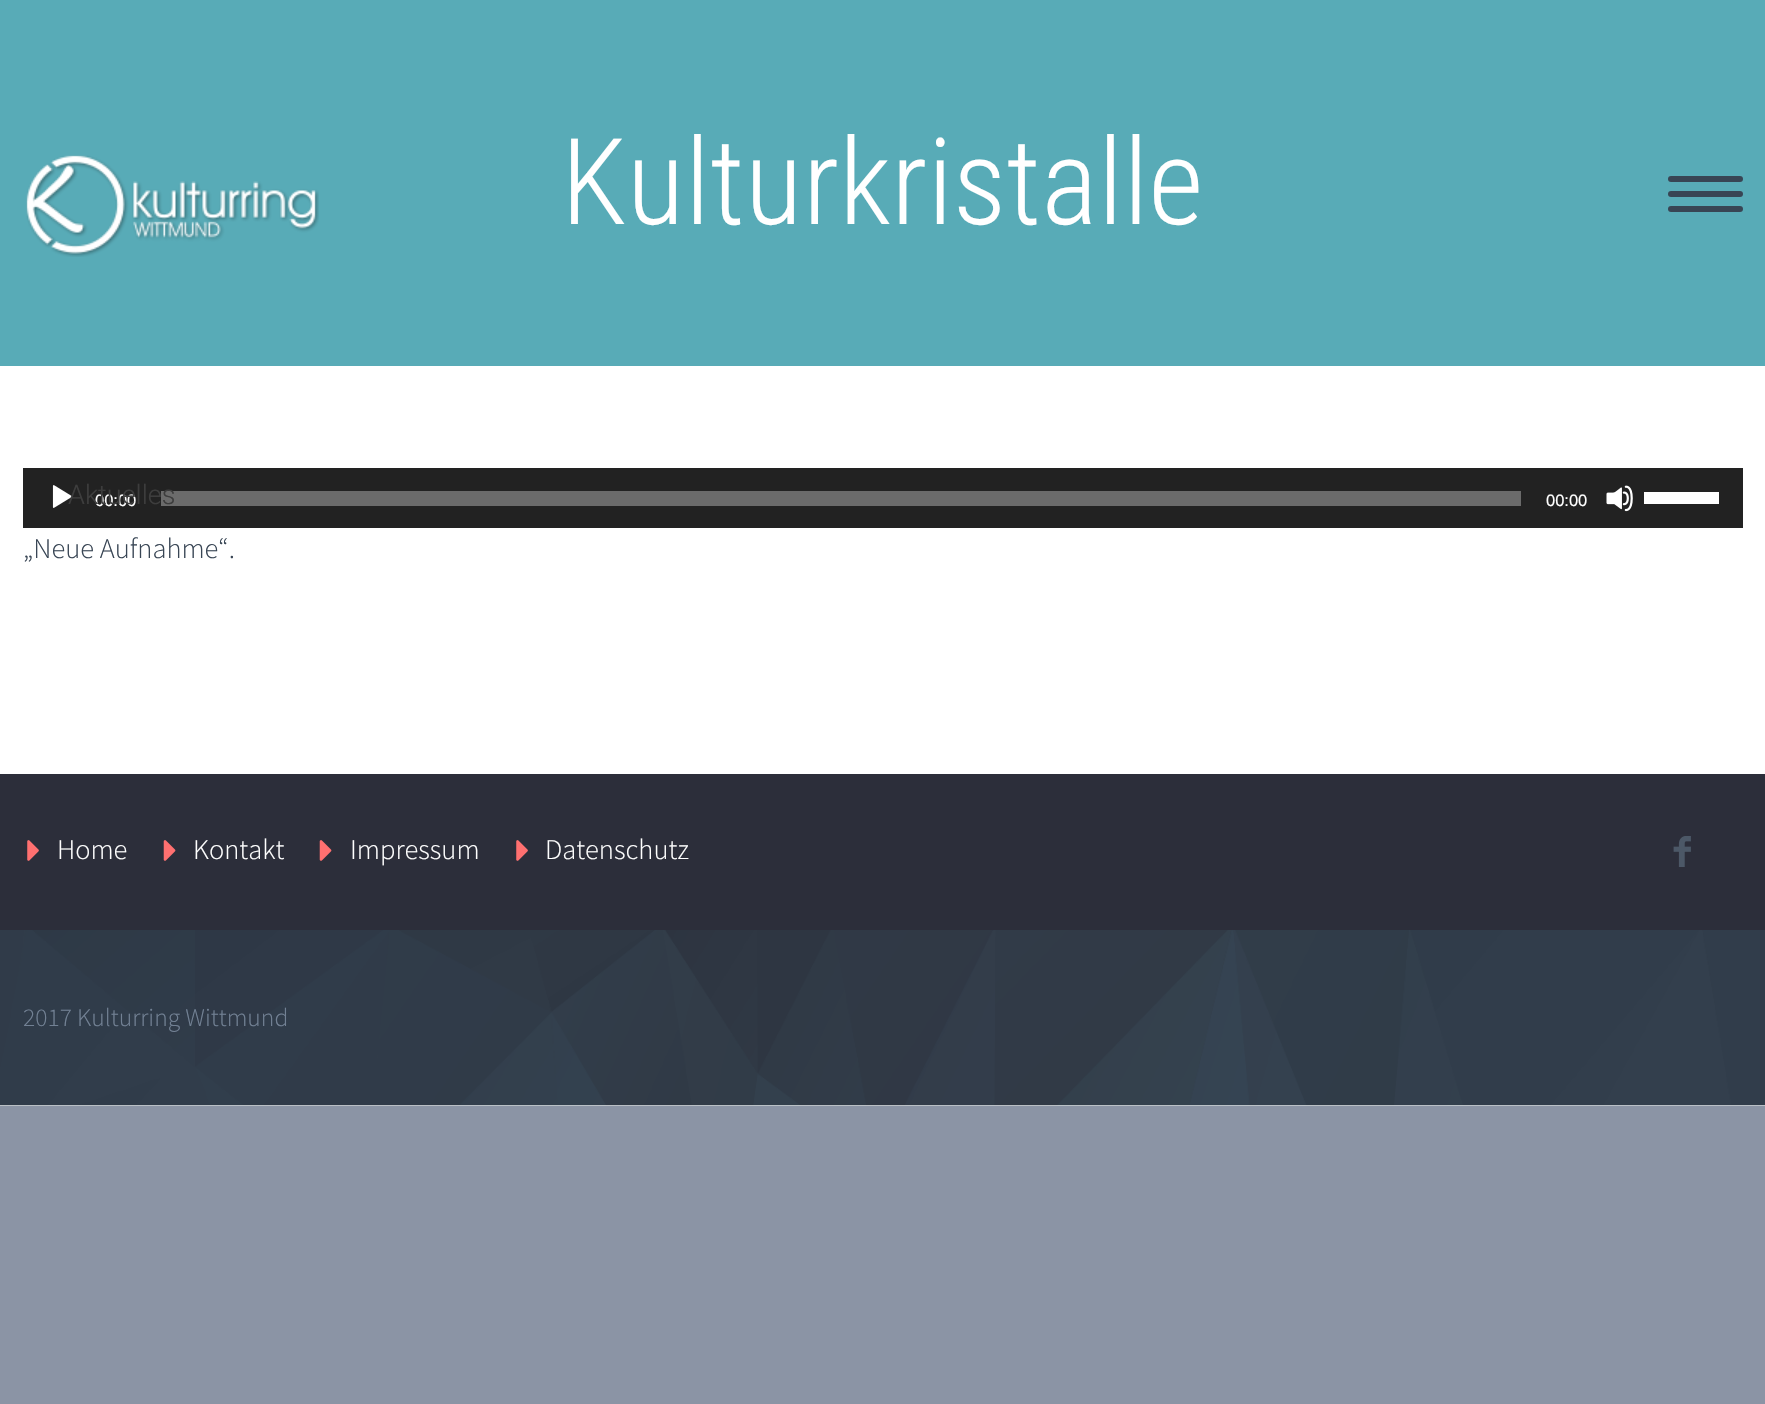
#include "include/core/SkBlurTypes.h"
#include "include/core/SkCanvas.h"
#include "include/core/SkData.h"
#include "include/core/SkFont.h"
#include "include/core/SkFontMgr.h"
#include "include/core/SkImage.h"
#include "include/core/SkMaskFilter.h"
#include "include/core/SkPaint.h"
#include "include/core/SkPathBuilder.h"
#include "include/core/SkTextBlob.h"
#include "include/effects/SkDashPathEffect.h"
#include "include/effects/SkGradientShader.h"
#include "include/utils/SkParsePath.h"

extern sk_sp<SkFontMgr> fontMgr;

void draw(SkCanvas* canvas) {
  SkPaint p;
  p.setAntiAlias(true);
  canvas->clear(SkColorSetRGB(139, 148, 165));
  p.setColor(SkColorSetRGB(232, 236, 239));
  canvas->drawRect(SkRect::MakeLTRB(0, 1105, 1765, 1106), p);
  p.setColor(SkColorSetRGB(88, 171, 183));
  canvas->drawRect(SkRect::MakeLTRB(0, 0, 1765, 366), p);
  p.setColor(SK_ColorWHITE);
  canvas->drawRect(SkRect::MakeLTRB(0, 366, 1765, 774), p);
  p.setColor(SkColorSetRGB(34, 34, 34));
  canvas->drawRect(SkRect::MakeLTRB(23, 468, 1743, 528), p);
  canvas->drawImageRect(SkImages::DeferredFromEncodedData(SkData::MakeFromFileName("images/1.png")), SkRect::MakeLTRB(52, 485, 72, 508), SkSamplingOptions());
  p.setColor(SkColorSetRGB(107, 107, 107));
  canvas->drawRect(SkRect::MakeLTRB(161, 491, 1521, 506), p);
  canvas->drawImageRect(SkImages::DeferredFromEncodedData(SkData::MakeFromFileName("images/2.png")), SkRect::MakeLTRB(1606, 485, 1633, 512), SkSamplingOptions());
  p.setColor(SK_ColorWHITE);
  canvas->drawRect(SkRect::MakeLTRB(1644, 492, 1719, 504), p);
  canvas->drawImageRect(SkImages::DeferredFromEncodedData(SkData::MakeFromFileName("images/3.png")), SkRect::MakeLTRB(26, 155, 319, 257), SkSamplingOptions());
  p.setColor(SkColorSetRGB(56, 69, 84));
  canvas->drawRoundRect(SkRect::MakeLTRB(1668, 206, 1743, 212), 3, 3, p);
  canvas->drawRoundRect(SkRect::MakeLTRB(1668, 191, 1743, 197), 3, 3, p);
  canvas->drawRoundRect(SkRect::MakeLTRB(1668, 176, 1743, 182), 3, 3, p);
  p.setColor(SkColorSetRGB(44, 46, 58));
  canvas->drawRect(SkRect::MakeLTRB(0, 774, 1765, 930), p);
  canvas->drawImageRect(SkImages::DeferredFromEncodedData(SkData::MakeFromFileName("images/4.png")), SkRect::MakeLTRB(27, 840, 39, 861), SkSamplingOptions());
  canvas->drawImageRect(SkImages::DeferredFromEncodedData(SkData::MakeFromFileName("images/5.png")), SkRect::MakeLTRB(163, 840, 176, 861), SkSamplingOptions());
  canvas->drawImageRect(SkImages::DeferredFromEncodedData(SkData::MakeFromFileName("images/5.png")), SkRect::MakeLTRB(319, 840, 332, 861), SkSamplingOptions());
  canvas->drawImageRect(SkImages::DeferredFromEncodedData(SkData::MakeFromFileName("images/4.png")), SkRect::MakeLTRB(516, 840, 528, 861), SkSamplingOptions());
  canvas->drawImageRect(SkImages::DeferredFromEncodedData(SkData::MakeFromFileName("images/6.png")), SkRect::MakeLTRB(1673, 836, 1691, 867), SkSamplingOptions());
  canvas->drawImageRect(SkImages::DeferredFromEncodedData(SkData::MakeFromFileName("images/7.png")), SkRect::MakeLTRB(0, 930, 1765, 1106), SkSamplingOptions());
  SkFont font1(fontMgr->matchFamilyStyle("Roboto Condensed", SkFontStyle(300, SkFontStyle::kNormal_Width, SkFontStyle::kUpright_Slant)), 120);
  font1.setSubpixel(true);
  p.setColor(SK_ColorWHITE);
  canvas->drawString("Kulturkristalle", 561, 224, font1, p);
  SkFont font2(fontMgr->matchFamilyStyle("Liberation Sans", SkFontStyle::Normal()), 16.5f);
  font2.setSubpixel(true);
  canvas->drawString("00:00", 95, 506, font2, p);
  canvas->drawString("00:00", 1546, 506, font2, p);
  SkFont font3(fontMgr->matchFamilyStyle("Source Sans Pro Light", SkFontStyle(300, SkFontStyle::kNormal_Width, SkFontStyle::kUpright_Slant)), 28.5f);
  font3.setSubpixel(true);
  p.setColor(SkColorSetRGB(56, 69, 84));
  canvas->drawString("„Neue Aufnahme“.", 23, 558, font3, p);
  SkFont font4(fontMgr->matchFamilyStyle("Roboto", SkFontStyle(300, SkFontStyle::kNormal_Width, SkFontStyle::kUpright_Slant)), 27);
  font4.setSubpixel(true);
  p.setColor(SkColorSetRGB(61, 61, 61));
  canvas->drawString("Aktuelles", 68, 504, font4, p);
  p.setColor(SK_ColorWHITE);
  canvas->drawString("Home", 57, 859, font3, p);
  canvas->drawString("Kontakt", 193, 859, font3, p);
  canvas->drawString("Impressum", 350, 859, font3, p);
  canvas->drawString("Datenschutz", 545, 859, font3, p);
  SkFont font5(fontMgr->matchFamilyStyle("Source Sans Pro Light", SkFontStyle(300, SkFontStyle::kNormal_Width, SkFontStyle::kUpright_Slant)), 25.5f);
  font5.setSubpixel(true);
  p.setColor(SkColorSetRGB(114, 129, 148));
  canvas->drawString("2017 Kulturring Wittmund", 23, 1026, font5, p);
}
